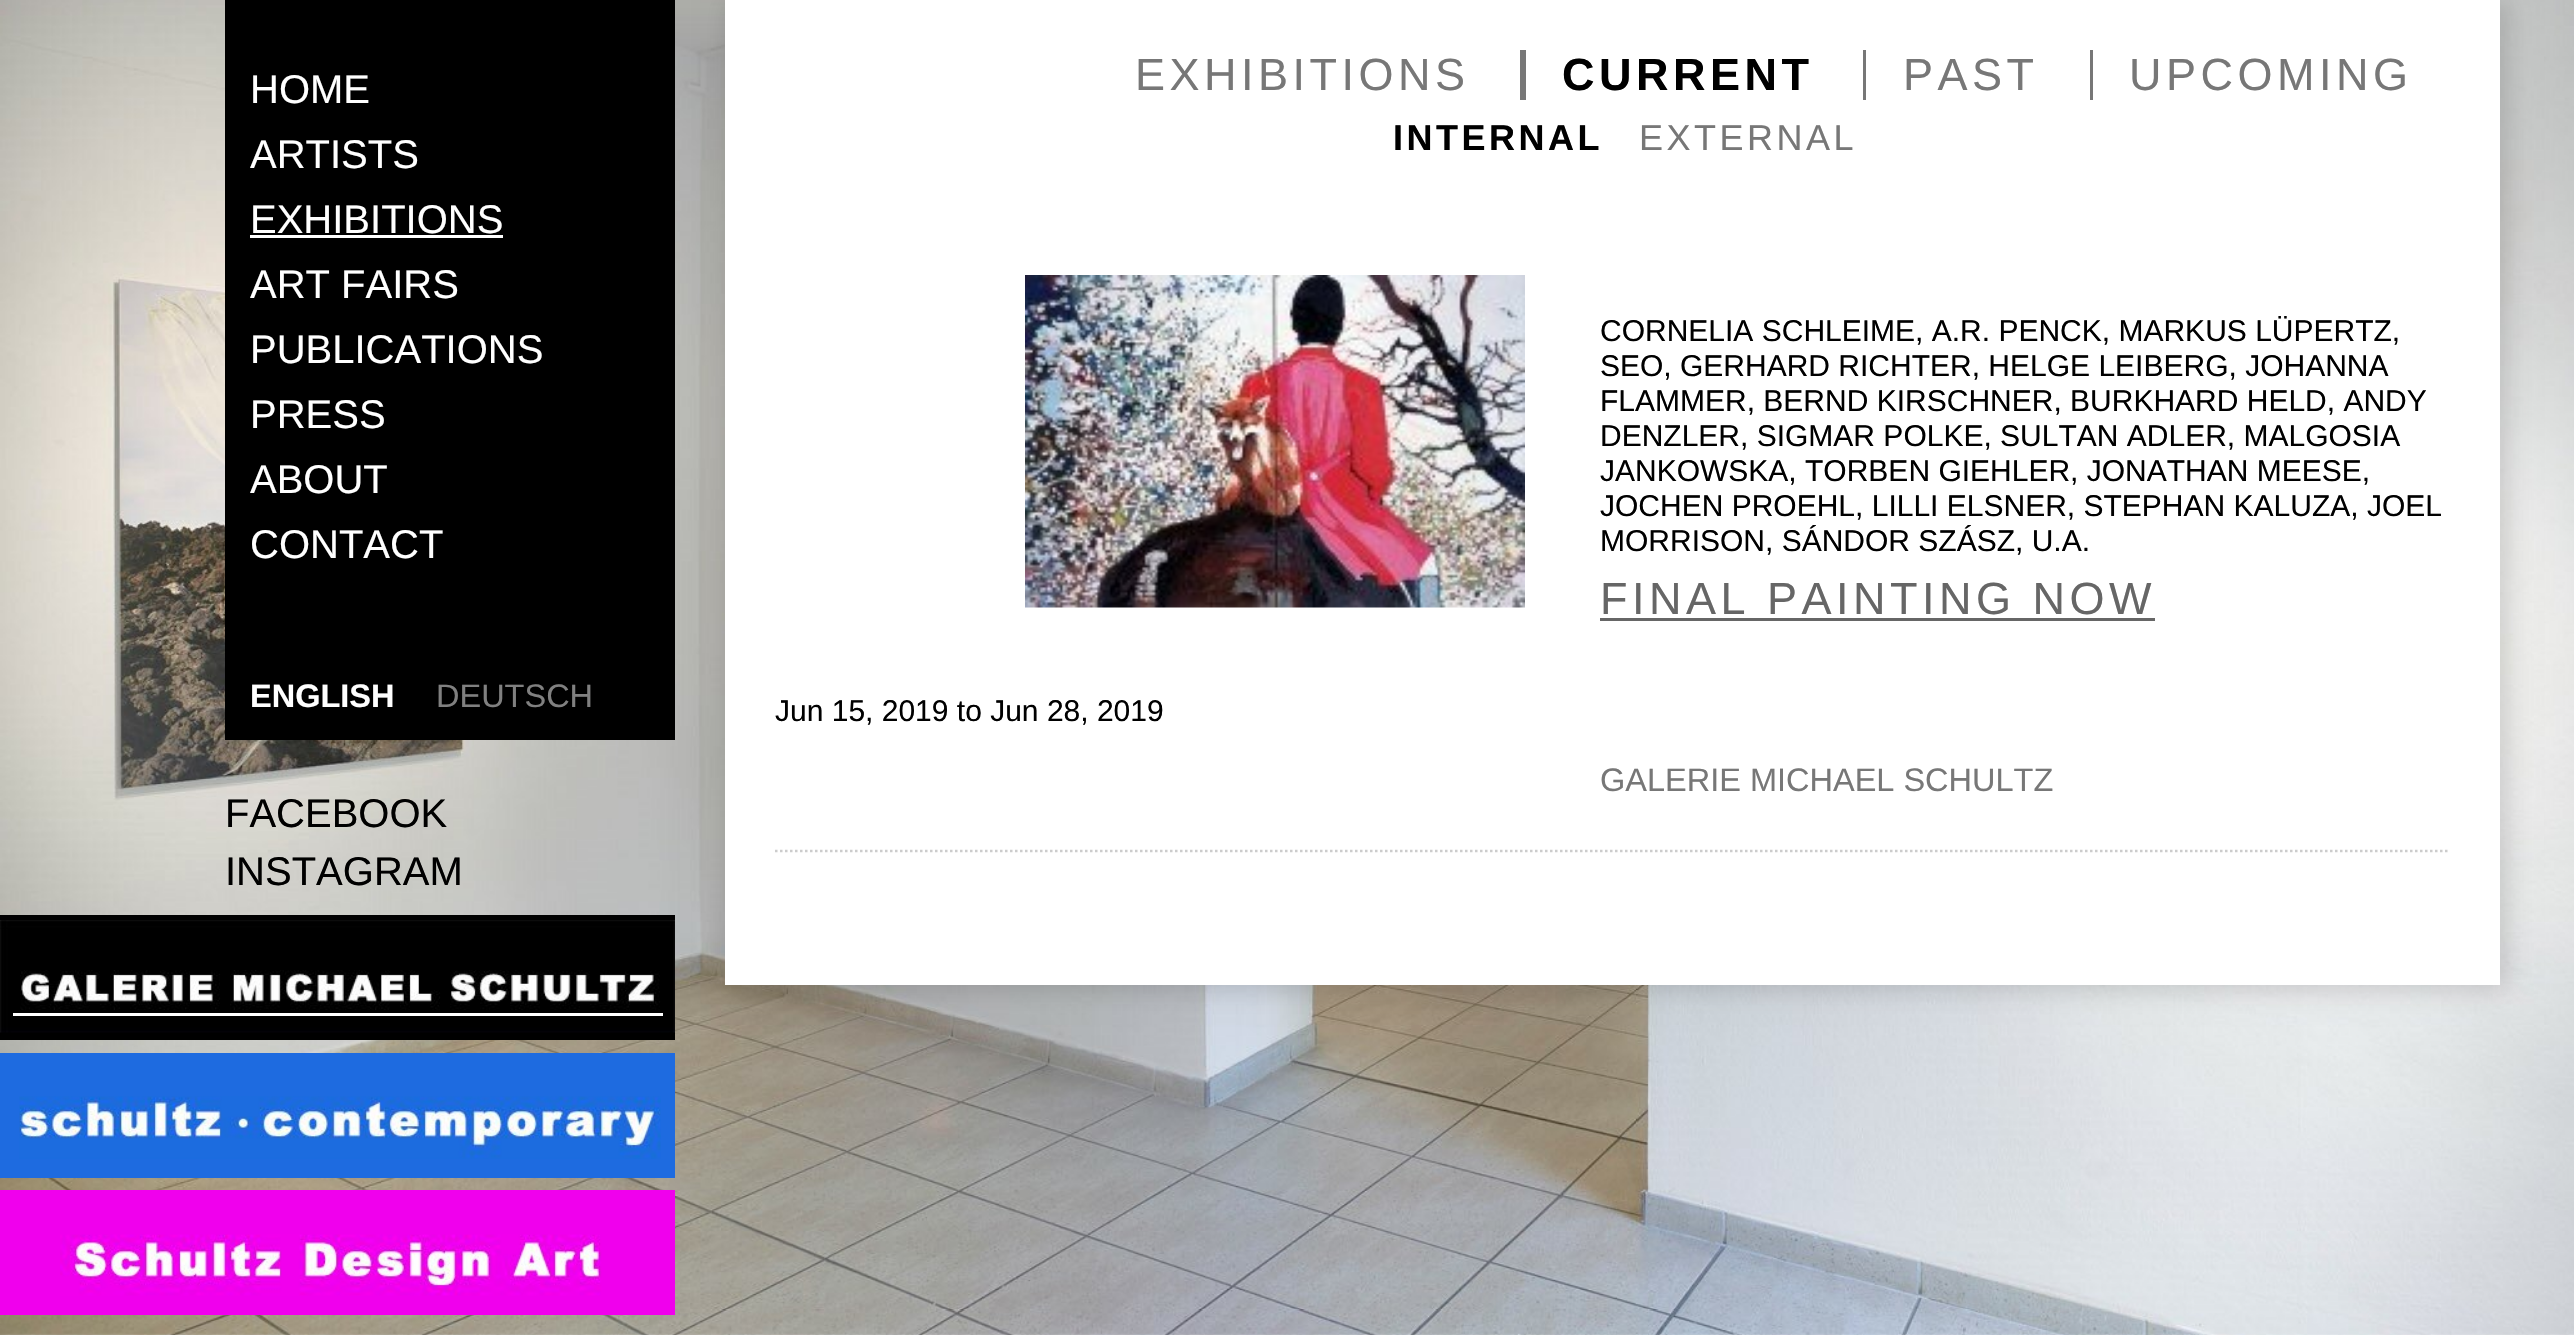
#include "include/core/SkBlurTypes.h"
#include "include/core/SkCanvas.h"
#include "include/core/SkData.h"
#include "include/core/SkFont.h"
#include "include/core/SkFontMgr.h"
#include "include/core/SkImage.h"
#include "include/core/SkMaskFilter.h"
#include "include/core/SkPaint.h"
#include "include/core/SkPathBuilder.h"
#include "include/core/SkTextBlob.h"
#include "include/effects/SkDashPathEffect.h"
#include "include/effects/SkGradientShader.h"
#include "include/utils/SkParsePath.h"

extern sk_sp<SkFontMgr> fontMgr;

void draw(SkCanvas* canvas) {
  SkPaint p;
  p.setAntiAlias(true);
  auto spacedText = [&](const char* s, float x, float y, const SkFont& font, const SkPaint& ink, float letter, float word) {
    std::vector<SkGlyphID> glyphs(font.countText(s, strlen(s), SkTextEncoding::kUTF8));
    std::vector<float> xs(glyphs.size());
    font.textToGlyphs(s, strlen(s), SkTextEncoding::kUTF8, glyphs);
    font.getXPos(glyphs, xs, x);
    float extra = 0;
    for (size_t i = 0; i < glyphs.size(); i++) {
      xs[i] += extra;
      extra += letter + word * (glyphs[i] == font.unicharToGlyph(' '));
    }
    canvas->drawTextBlob(SkTextBlob::MakeFromPosHGlyphs(glyphs, xs, y, font), 0, 0, ink);
  };
  canvas->clear(SK_ColorWHITE);
  canvas->drawImageRect(SkImages::DeferredFromEncodedData(SkData::MakeFromFileName("images/1.png")), SkRect::MakeLTRB(0, 0, 2574, 1335), SkSamplingOptions());
  p.setColor(SK_ColorBLACK);
  canvas->drawRect(SkRect::MakeLTRB(225, 0, 675, 740), p);
  p.setColor(SK_ColorWHITE);
  canvas->drawRect(SkRect::MakeLTRB(250, 235, 503, 238), p);
  p.setColor(SK_ColorBLACK);
  canvas->drawRect(SkRect::MakeLTRB(0, 915, 675, 1040), p);
  canvas->drawImageRect(SkImages::DeferredFromEncodedData(SkData::MakeFromFileName("images/2.png")), SkRect::MakeLTRB(0, 920, 675, 1033), SkSamplingOptions());
  p.setColor(SK_ColorWHITE);
  canvas->drawRect(SkRect::MakeLTRB(13, 1013, 663, 1016), p);
  p.setColor(SkColorSetRGB(30, 107, 224));
  canvas->drawRect(SkRect::MakeLTRB(0, 1053, 675, 1178), p);
  canvas->drawImageRect(SkImages::DeferredFromEncodedData(SkData::MakeFromFileName("images/3.png")), SkRect::MakeLTRB(19, 1096, 661, 1159), SkSamplingOptions());
  p.setColor(SkColorSetRGB(240, 0, 237));
  canvas->drawRect(SkRect::MakeLTRB(0, 1190, 675, 1315), p);
  canvas->drawImageRect(SkImages::DeferredFromEncodedData(SkData::MakeFromFileName("images/4.png")), SkRect::MakeLTRB(60, 1234, 602, 1296), SkSamplingOptions());
  p.setColor(SkColorSetARGB(38, 0, 0, 0));
  p.setMaskFilter(SkMaskFilter::MakeBlur(kNormal_SkBlurStyle, 12.5f));
  canvas->drawRect(SkRect::MakeLTRB(728, 0, 2508, 990), p);
  p.setMaskFilter(nullptr);
  p.setColor(SK_ColorWHITE);
  canvas->drawRect(SkRect::MakeLTRB(725, 0, 2500, 985), p);
  p.setColor(SkColorSetRGB(119, 119, 119));
  canvas->drawRect(SkRect::MakeLTRB(1520, 50, 1526, 100), p);
  canvas->drawRect(SkRect::MakeLTRB(1863, 50, 1866, 100), p);
  canvas->drawRect(SkRect::MakeLTRB(2090, 50, 2093, 100), p);
  p.setStyle(SkPaint::kStroke_Style);
  p.setStrokeWidth(2.5f);
  p.setColor(SkColorSetRGB(204, 204, 204));
  p.setPathEffect(SkDashPathEffect::Make({{2.5f, 2.5f}}, 0));
  canvas->drawPath(SkPathBuilder().moveTo(775, 851).lineTo(2450, 851).detach(), p);
  p.setPathEffect(nullptr);
  canvas->drawImageRect(SkImages::DeferredFromEncodedData(SkData::MakeFromFileName("images/5.png")), SkRect::MakeLTRB(1025, 275, 1525, 608), SkSamplingOptions());
  p.setStyle(SkPaint::kFill_Style);
  p.setColor(SkColorSetRGB(102, 102, 102));
  canvas->drawRect(SkRect::MakeLTRB(1600, 618, 2155, 621), p);
  SkFont font1(fontMgr->matchFamilyStyle("Liberation Sans", SkFontStyle::Normal()), 40);
  font1.setSubpixel(true);
  p.setColor(SK_ColorWHITE);
  canvas->drawString("HOME", 250, 103, font1, p);
  canvas->drawString("ARTISTS", 250, 168, font1, p);
  canvas->drawString("EXHIBITIONS", 250, 233, font1, p);
  canvas->drawString("ART FAIRS", 250, 298, font1, p);
  canvas->drawString("PUBLICATIONS", 250, 363, font1, p);
  canvas->drawString("PRESS", 250, 428, font1, p);
  canvas->drawString("ABOUT", 250, 493, font1, p);
  canvas->drawString("CONTACT", 250, 558, font1, p);
  SkFont font2(fontMgr->matchFamilyStyle("Liberation Sans", SkFontStyle::Bold()), 32.5f);
  font2.setSubpixel(true);
  canvas->drawString("ENGLISH", 250, 707, font2, p);
  SkFont font3(fontMgr->matchFamilyStyle("Liberation Sans", SkFontStyle::Normal()), 32.5f);
  font3.setSubpixel(true);
  p.setColor(SkColorSetRGB(128, 128, 128));
  canvas->drawString("DEUTSCH", 436, 707, font3, p);
  p.setColor(SK_ColorBLACK);
  canvas->drawString("FACEBOOK", 225, 827, font1, p);
  canvas->drawString("INSTAGRAM", 225, 885, font1, p);
  SkFont font4(fontMgr->matchFamilyStyle("Liberation Sans", SkFontStyle::Normal()), 45);
  font4.setSubpixel(true);
  p.setColor(SkColorSetRGB(119, 119, 119));
  spacedText("EXHIBITIONS", 1135, 90, font4, p, 4.5f, 0);
  SkFont font5(fontMgr->matchFamilyStyle("Liberation Sans", SkFontStyle::Bold()), 45);
  font5.setSubpixel(true);
  p.setColor(SK_ColorBLACK);
  spacedText("CURRENT", 1562, 90, font5, p, 4.5f, 0);
  SkFont font6(fontMgr->matchFamilyStyle("Liberation Sans", SkFontStyle::Bold()), 36);
  font6.setSubpixel(true);
  spacedText("INTERNAL", 1393, 150, font6, p, 3.5f, 0);
  SkFont font7(fontMgr->matchFamilyStyle("Liberation Sans", SkFontStyle::Normal()), 36);
  font7.setSubpixel(true);
  p.setColor(SkColorSetRGB(119, 119, 119));
  spacedText("EXTERNAL", 1639, 150, font7, p, 3.5f, 0);
  spacedText("PAST", 1903, 90, font4, p, 4.5f, 0);
  spacedText("UPCOMING", 2129, 90, font4, p, 4.5f, 0);
  SkFont font8(fontMgr->matchFamilyStyle("Liberation Sans", SkFontStyle::Normal()), 30);
  font8.setSubpixel(true);
  p.setColor(SK_ColorBLACK);
  canvas->drawString("CORNELIA SCHLEIME, A.R. PENCK, MARKUS LÜPERTZ,", 1600, 341, font8, p);
  canvas->drawString("SEO, GERHARD RICHTER, HELGE LEIBERG, JOHANNA", 1600, 376, font8, p);
  canvas->drawString("FLAMMER, BERND KIRSCHNER, BURKHARD HELD, ANDY", 1600, 411, font8, p);
  canvas->drawString("DENZLER, SIGMAR POLKE, SULTAN ADLER, MALGOSIA", 1600, 446, font8, p);
  canvas->drawString("JANKOWSKA, TORBEN GIEHLER, JONATHAN MEESE,", 1600, 481, font8, p);
  canvas->drawString("JOCHEN PROEHL, LILLI ELSNER, STEPHAN KALUZA, JOEL", 1600, 516, font8, p);
  canvas->drawString("MORRISON, SÁNDOR SZÁSZ, U.A.", 1600, 551, font8, p);
  p.setColor(SkColorSetRGB(102, 102, 102));
  spacedText("FINAL PAINTING NOW", 1600, 614, font4, p, 4.5f, 0);
  p.setColor(SK_ColorBLACK);
  canvas->drawString("Jun 15, 2019 to Jun 28, 2019", 775, 721, font8, p);
  p.setColor(SkColorSetRGB(119, 119, 119));
  canvas->drawString("GALERIE MICHAEL SCHULTZ", 1600, 791, font3, p);
}
